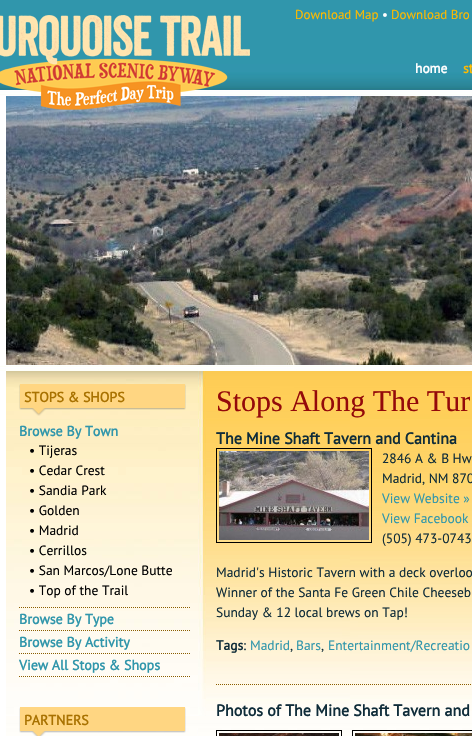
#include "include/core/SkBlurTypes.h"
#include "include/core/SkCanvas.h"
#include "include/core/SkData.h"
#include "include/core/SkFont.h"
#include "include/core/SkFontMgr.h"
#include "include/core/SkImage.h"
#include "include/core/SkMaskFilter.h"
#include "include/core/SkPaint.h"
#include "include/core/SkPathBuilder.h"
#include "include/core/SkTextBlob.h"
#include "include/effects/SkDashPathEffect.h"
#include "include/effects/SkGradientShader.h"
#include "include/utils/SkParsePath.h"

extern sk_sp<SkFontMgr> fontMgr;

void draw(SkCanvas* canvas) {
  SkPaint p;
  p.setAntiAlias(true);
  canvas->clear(SK_ColorWHITE);
  canvas->drawImageRect(SkImages::DeferredFromEncodedData(SkData::MakeFromFileName("images/1.png")), SkRect::MakeLTRB(0, 0, 472, 736), SkSamplingOptions());
  p.setColor(SK_ColorWHITE);
  canvas->drawRect(SkRect::MakeLTRB(0, 96, 6, 365), p);
  canvas->drawImageRect(SkImages::DeferredFromEncodedData(SkData::MakeFromFileName("images/3.png")), SkRect::MakeLTRB(6, 96, 472, 365), SkSamplingOptions());
  canvas->drawImageRect(SkImages::DeferredFromEncodedData(SkData::MakeFromFileName("images/2.png")), SkRect::MakeLTRB(0, 15, 250, 110), SkSamplingOptions());
  canvas->drawImageRect(SkImages::DeferredFromEncodedData(SkData::MakeFromFileName("images/4.png")), SkRect::MakeLTRB(6, 371, 472, 716), SkSamplingOptions());
  canvas->drawRect(SkRect::MakeLTRB(0, 371, 6, 736), p);
  canvas->drawImageRect(SkImages::DeferredFromEncodedData(SkData::MakeFromFileName("images/5.png")), SkRect::MakeLTRB(19, 384, 186, 416), SkSamplingOptions());
  p.setStyle(SkPaint::kStroke_Style);
  p.setStrokeWidth(1);
  p.setColor(SkColorSetRGB(139, 94, 0));
  p.setPathEffect(SkDashPathEffect::Make({{1, 1}}, 0));
  canvas->drawPath(SkPathBuilder().moveTo(19, 607.5f).lineTo(190, 607.5f).detach(), p);
  p.setPathEffect(nullptr);
  p.setPathEffect(SkDashPathEffect::Make({{1, 1}}, 0));
  canvas->drawPath(SkPathBuilder().moveTo(19, 630.5f).lineTo(190, 630.5f).detach(), p);
  p.setPathEffect(nullptr);
  p.setPathEffect(SkDashPathEffect::Make({{1, 1}}, 0));
  canvas->drawPath(SkPathBuilder().moveTo(19, 653.5f).lineTo(190, 653.5f).detach(), p);
  p.setPathEffect(nullptr);
  p.setPathEffect(SkDashPathEffect::Make({{1, 1}}, 0));
  canvas->drawPath(SkPathBuilder().moveTo(19, 676.5f).lineTo(190, 676.5f).detach(), p);
  p.setPathEffect(nullptr);
  canvas->drawImageRect(SkImages::DeferredFromEncodedData(SkData::MakeFromFileName("images/6.png")), SkRect::MakeLTRB(19, 707, 186, 736), SkSamplingOptions());
  p.setColor(SK_ColorBLACK);
  canvas->drawRect(SkRect::MakeLTRB(216.5f, 448.5f, 371.5f, 542.5f), p);
  canvas->drawImageRect(SkImages::DeferredFromEncodedData(SkData::MakeFromFileName("images/7.png")), SkRect::MakeLTRB(219, 451, 369, 540), SkSamplingOptions());
  p.setColor(SkColorSetRGB(139, 94, 0));
  p.setPathEffect(SkDashPathEffect::Make({{1, 1}}, 0));
  canvas->drawPath(SkPathBuilder().moveTo(216, 684.5f).lineTo(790, 684.5f).detach(), p);
  p.setPathEffect(nullptr);
  p.setColor(SK_ColorBLACK);
  canvas->drawRect(SkRect::MakeLTRB(216.5f, 730.5f, 341.5f, 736.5f), p);
  canvas->drawImageRect(SkImages::DeferredFromEncodedData(SkData::MakeFromFileName("images/8.png")), SkRect::MakeLTRB(219, 733, 339, 736), SkSamplingOptions());
  canvas->drawRect(SkRect::MakeLTRB(352.5f, 730.5f, 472.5f, 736.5f), p);
  canvas->drawImageRect(SkImages::DeferredFromEncodedData(SkData::MakeFromFileName("images/9.png")), SkRect::MakeLTRB(355, 733, 472, 736), SkSamplingOptions());
  SkFont font1(fontMgr->matchFamilyStyle("PT Sans", SkFontStyle::Normal()), 13);
  font1.setSubpixel(true);
  p.setStyle(SkPaint::kFill_Style);
  p.setColor(SkColorSetRGB(255, 186, 0));
  canvas->drawString("Download Map", 295, 19, font1, p);
  p.setColor(SK_ColorWHITE);
  canvas->drawString("•", 382, 19, font1, p);
  p.setColor(SkColorSetRGB(255, 186, 0));
  canvas->drawString("Download Bro", 391, 19, font1, p);
  SkFont font2(fontMgr->matchFamilyStyle("PT Sans", SkFontStyle::Bold()), 13.5f);
  font2.setSubpixel(true);
  p.setColor(SK_ColorWHITE);
  canvas->drawString("home", 415, 73, font2, p);
  p.setColor(SkColorSetRGB(255, 186, 0));
  canvas->drawString("st", 463, 73, font2, p);
  SkFont font3(fontMgr->matchFamilyStyle("PT Sans", SkFontStyle::Bold()), 14);
  font3.setSubpixel(true);
  p.setColor(SkColorSetRGB(169, 114, 0));
  canvas->drawString("STOPS & SHOPS", 24, 402, font3, p);
  p.setColor(SkColorSetRGB(48, 150, 171));
  canvas->drawString("Browse By Town", 19, 436, font3, p);
  SkFont font4(fontMgr->matchFamilyStyle("PT Sans", SkFontStyle::Normal()), 13.5f);
  font4.setSubpixel(true);
  p.setColor(SK_ColorBLACK);
  canvas->drawString("• Tijeras", 29, 455, font4, p);
  canvas->drawString("• Cedar Crest", 29, 475, font4, p);
  canvas->drawString("• Sandia Park", 29, 495, font4, p);
  canvas->drawString("• Golden", 29, 515, font4, p);
  canvas->drawString("• Madrid", 29, 535, font4, p);
  canvas->drawString("• Cerrillos", 29, 555, font4, p);
  canvas->drawString("• San Marcos/Lone Butte", 29, 575, font4, p);
  canvas->drawString("• Top of the Trail", 29, 595, font4, p);
  p.setColor(SkColorSetRGB(48, 150, 171));
  canvas->drawString("Browse By Type", 19, 624, font3, p);
  canvas->drawString("Browse By Activity", 19, 647, font3, p);
  canvas->drawString("View All Stops & Shops", 19, 670, font3, p);
  p.setColor(SkColorSetRGB(169, 114, 0));
  canvas->drawString("PARTNERS", 24, 725, font3, p);
  SkFont font5(fontMgr->matchFamilyStyle("Liberation Serif", SkFontStyle::Normal()), 30);
  font5.setSubpixel(true);
  p.setColor(SkColorSetRGB(148, 10, 10));
  canvas->drawString("Stops Along The Tur", 216, 411, font5, p);
  SkFont font6(fontMgr->matchFamilyStyle("PT Sans", SkFontStyle::Bold()), 16);
  font6.setSubpixel(true);
  p.setColor(SkColorSetRGB(15, 44, 57));
  canvas->drawString("The Mine Shaft Tavern and Cantina", 216, 444, font6, p);
  canvas->drawString("2846 A & B Hw", 382, 463, font4, p);
  canvas->drawString("Madrid, NM 870", 382, 483, font4, p);
  p.setColor(SkColorSetRGB(48, 150, 171));
  canvas->drawString("View Website »", 382, 503, font4, p);
  canvas->drawString("View Facebook", 382, 523, font4, p);
  p.setColor(SkColorSetRGB(15, 44, 57));
  canvas->drawString("(505) 473-0743", 382, 543, font4, p);
  canvas->drawString("Madrid's Historic Tavern with a deck overloo", 216, 577, font4, p);
  canvas->drawString("Winner of the Santa Fe Green Chile Cheeseb", 216, 597, font4, p);
  canvas->drawString("Sunday & 12 local brews on Tap!", 216, 617, font4, p);
  canvas->drawString("Tags", 216, 650, font2, p);
  canvas->drawString(":", 243, 650, font4, p);
  p.setColor(SkColorSetRGB(48, 150, 171));
  canvas->drawString("Madrid", 250, 650, font4, p);
  p.setColor(SkColorSetRGB(15, 44, 57));
  canvas->drawString(",", 290, 650, font4, p);
  p.setColor(SkColorSetRGB(48, 150, 171));
  canvas->drawString("Bars", 296, 650, font4, p);
  p.setColor(SkColorSetRGB(15, 44, 57));
  canvas->drawString(",", 321, 650, font4, p);
  p.setColor(SkColorSetRGB(48, 150, 171));
  canvas->drawString("Entertainment/Recreatio", 328, 650, font4, p);
  p.setColor(SkColorSetRGB(15, 44, 57));
  canvas->drawString("Photos of The Mine Shaft Tavern and", 216, 716, font6, p);
}
